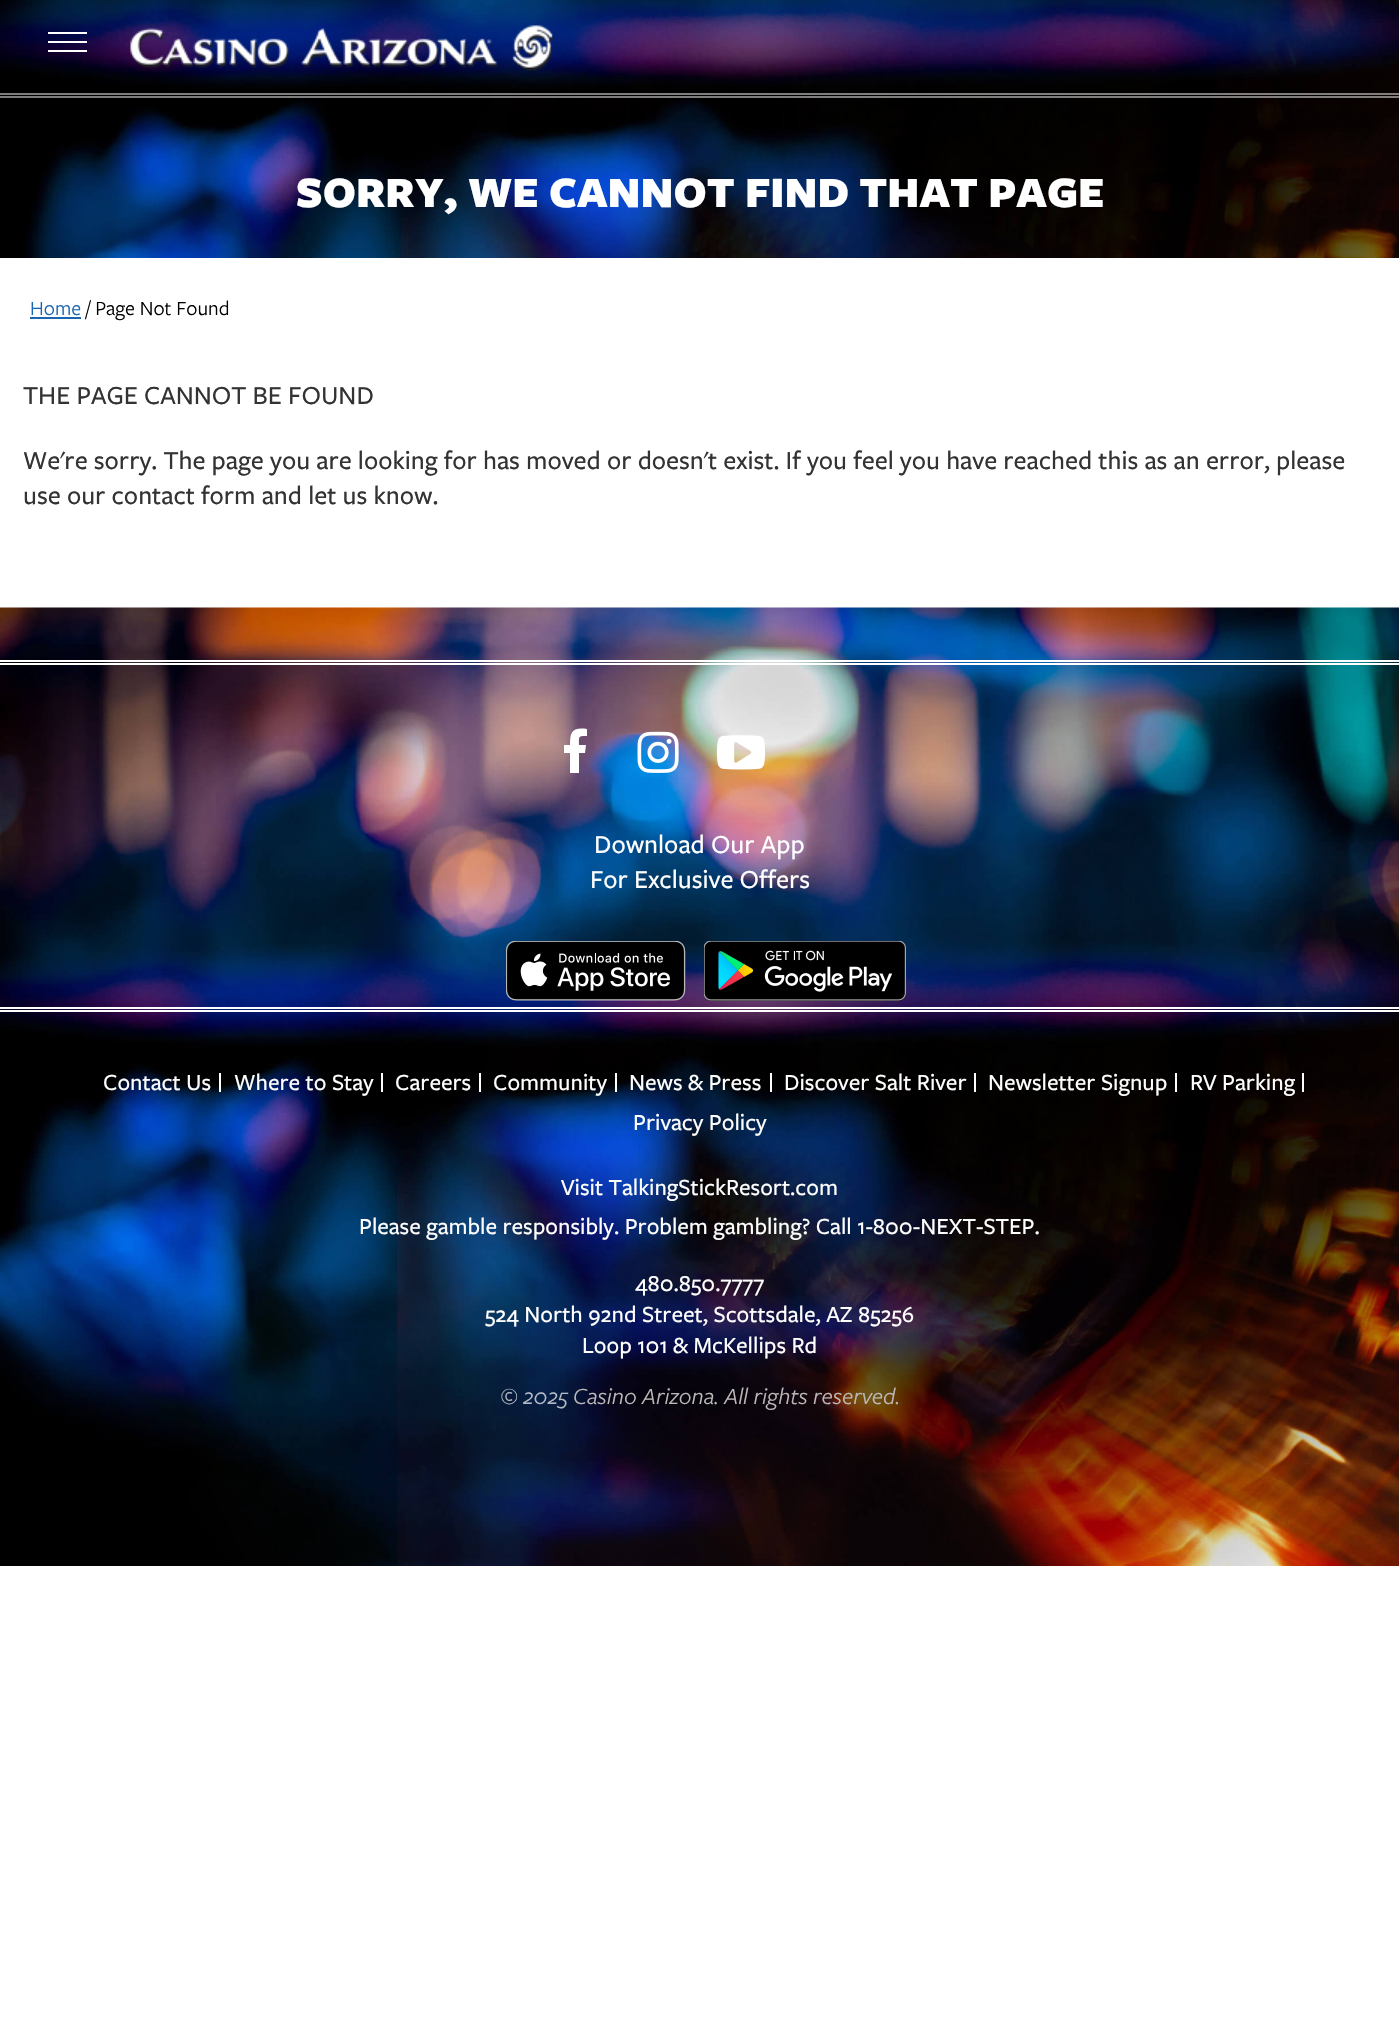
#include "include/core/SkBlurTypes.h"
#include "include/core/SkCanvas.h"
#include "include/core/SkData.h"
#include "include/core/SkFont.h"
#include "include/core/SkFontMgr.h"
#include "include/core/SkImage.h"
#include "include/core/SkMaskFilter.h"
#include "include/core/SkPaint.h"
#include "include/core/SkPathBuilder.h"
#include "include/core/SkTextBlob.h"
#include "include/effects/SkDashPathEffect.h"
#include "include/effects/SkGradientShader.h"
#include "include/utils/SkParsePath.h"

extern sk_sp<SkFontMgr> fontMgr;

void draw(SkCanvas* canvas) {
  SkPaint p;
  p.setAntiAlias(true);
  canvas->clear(SK_ColorWHITE);
  canvas->drawImageRect(SkImages::DeferredFromEncodedData(SkData::MakeFromFileName("images/2.png")), SkRect::MakeLTRB(0, 0, 1399, 258), SkSamplingOptions());
  p.setColor(SkColorSetARGB(128, 250, 250, 250));
  canvas->drawRect(SkRect::MakeLTRB(0, 93, 1399, 95), p);
  canvas->drawRect(SkRect::MakeLTRB(0, 96, 1399, 98), p);
  p.setColor(SK_ColorWHITE);
  canvas->drawRect(SkRect::MakeLTRB(48, 41, 87, 43), p);
  canvas->drawRect(SkRect::MakeLTRB(48, 32, 87, 34), p);
  canvas->drawRect(SkRect::MakeLTRB(48, 50, 87, 52), p);
  canvas->drawImageRect(SkImages::DeferredFromEncodedData(SkData::MakeFromFileName("images/1.png")), SkRect::MakeLTRB(130, 25, 554, 71), SkSamplingOptions());
  p.setColor(SkColorSetRGB(25, 103, 177));
  canvas->drawRect(SkRect::MakeLTRB(30, 317, 81, 319), p);
  canvas->drawImageRect(SkImages::DeferredFromEncodedData(SkData::MakeFromFileName("images/3.png")), SkRect::MakeLTRB(0, 607, 1399, 1566), SkSamplingOptions());
  p.setColor(SK_ColorWHITE);
  canvas->drawRect(SkRect::MakeLTRB(0, 660, 1399, 662), p);
  canvas->drawRect(SkRect::MakeLTRB(0, 663, 1399, 665), p);
  canvas->drawRect(SkRect::MakeLTRB(0, 1007, 1399, 1009), p);
  canvas->drawRect(SkRect::MakeLTRB(0, 1010, 1399, 1012), p);
  canvas->drawPath(SkPathBuilder().moveTo(587, 729).lineTo(587, 736).cubicTo(578, 736, 579, 736, 579, 745).lineTo(586, 745).lineTo(585, 753).lineTo(579, 753).lineTo(579, 773).lineTo(570, 773).lineTo(570, 753).lineTo(564, 753).lineTo(564, 745).lineTo(570, 745).cubicTo(570, 732, 572, 727, 587, 729).close().detach(), p);
  canvas->drawImageRect(SkImages::DeferredFromEncodedData(SkData::MakeFromFileName("images/4.png")), SkRect::MakeLTRB(637, 731, 679, 773), SkSamplingOptions());
  canvas->drawImageRect(SkImages::DeferredFromEncodedData(SkData::MakeFromFileName("images/5.png")), SkRect::MakeLTRB(717, 735, 765, 770), SkSamplingOptions());
  canvas->drawImageRect(SkImages::DeferredFromEncodedData(SkData::MakeFromFileName("images/6.png")), SkRect::MakeLTRB(506, 941, 686, 1001), SkSamplingOptions());
  canvas->drawImageRect(SkImages::DeferredFromEncodedData(SkData::MakeFromFileName("images/7.png")), SkRect::MakeLTRB(704, 941, 906, 1001), SkSamplingOptions());
  canvas->drawRect(SkRect::MakeLTRB(219, 1073, 221, 1092), p);
  canvas->drawRect(SkRect::MakeLTRB(381, 1073, 383, 1092), p);
  canvas->drawRect(SkRect::MakeLTRB(479, 1073, 481, 1092), p);
  canvas->drawRect(SkRect::MakeLTRB(615, 1073, 617, 1092), p);
  canvas->drawRect(SkRect::MakeLTRB(770, 1073, 772, 1092), p);
  canvas->drawRect(SkRect::MakeLTRB(974, 1073, 976, 1092), p);
  canvas->drawRect(SkRect::MakeLTRB(1175, 1073, 1177, 1092), p);
  canvas->drawRect(SkRect::MakeLTRB(1302, 1073, 1304, 1092), p);
  SkFont font1(fontMgr->matchFamilyStyle("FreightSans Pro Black", SkFontStyle(900, SkFontStyle::kNormal_Width, SkFontStyle::kUpright_Slant)), 45);
  font1.setSubpixel(true);
  canvas->drawString("SORRY, WE CANNOT FIND THAT PAGE", 296, 207, font1, p);
  SkFont font2(fontMgr->matchFamilyStyle("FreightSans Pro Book", SkFontStyle::Normal()), 21);
  font2.setSubpixel(true);
  p.setColor(SkColorSetRGB(25, 103, 177));
  canvas->drawString("Home", 30, 315, font2, p);
  p.setColor(SK_ColorBLACK);
  canvas->drawString("/ Page Not Found", 86, 315, font2, p);
  SkFont font3(fontMgr->matchFamilyStyle("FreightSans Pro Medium", SkFontStyle(500, SkFontStyle::kNormal_Width, SkFontStyle::kUpright_Slant)), 27);
  font3.setSubpixel(true);
  p.setColor(SkColorSetRGB(51, 51, 51));
  canvas->drawString("THE PAGE CANNOT BE FOUND", 23, 404, font3, p);
  canvas->drawString("We're sorry. The page you are looking for has moved or doesn't exist. If you feel you have reached this as an error, please", 23, 469, font3, p);
  canvas->drawString("use our contact form and let us know.", 23, 504, font3, p);
  p.setColor(SK_ColorWHITE);
  canvas->drawString("Download Our App", 594, 853, font3, p);
  canvas->drawString("For Exclusive Offers", 590, 888, font3, p);
  SkFont font4(fontMgr->matchFamilyStyle("FreightSans Pro Medium", SkFontStyle(500, SkFontStyle::kNormal_Width, SkFontStyle::kUpright_Slant)), 24);
  font4.setSubpixel(true);
  canvas->drawString("Contact Us", 103, 1090, font4, p);
  canvas->drawString("Where to Stay", 234, 1090, font4, p);
  canvas->drawString("Careers", 395, 1090, font4, p);
  canvas->drawString("Community", 493, 1090, font4, p);
  canvas->drawString("News & Press", 629, 1090, font4, p);
  canvas->drawString("Discover Salt River", 784, 1090, font4, p);
  canvas->drawString("Newsletter Signup", 988, 1090, font4, p);
  canvas->drawString("RV Parking", 1190, 1090, font4, p);
  canvas->drawString("Privacy Policy", 633, 1130, font4, p);
  canvas->drawString("Visit TalkingStickResort.com", 561, 1195, font4, p);
  canvas->drawString("Please gamble responsibly. Problem gambling? Call 1-800-NEXT-STEP.", 359, 1234, font4, p);
  canvas->drawString("480.850.7777", 635, 1291, font4, p);
  canvas->drawString("524 North 92nd Street, Scottsdale, AZ 85256", 485, 1322, font4, p);
  canvas->drawString("Loop 101 & McKellips Rd", 582, 1353, font4, p);
  SkFont font5(fontMgr->matchFamilyStyle("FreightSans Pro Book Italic", SkFontStyle::Italic()), 24);
  font5.setSubpixel(true);
  p.setColor(SkColorSetRGB(180, 187, 197));
  canvas->drawString("© 2025", 500, 1404, font5, p);
  p.setColor(SkColorSetRGB(188, 184, 183));
  canvas->drawString("Casino Arizona. All rights reserved.", 573, 1404, font5, p);
}
